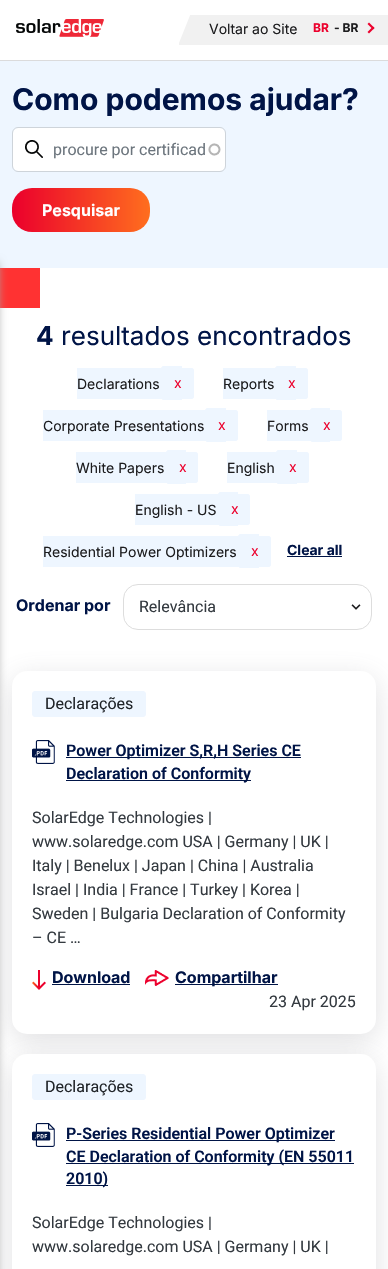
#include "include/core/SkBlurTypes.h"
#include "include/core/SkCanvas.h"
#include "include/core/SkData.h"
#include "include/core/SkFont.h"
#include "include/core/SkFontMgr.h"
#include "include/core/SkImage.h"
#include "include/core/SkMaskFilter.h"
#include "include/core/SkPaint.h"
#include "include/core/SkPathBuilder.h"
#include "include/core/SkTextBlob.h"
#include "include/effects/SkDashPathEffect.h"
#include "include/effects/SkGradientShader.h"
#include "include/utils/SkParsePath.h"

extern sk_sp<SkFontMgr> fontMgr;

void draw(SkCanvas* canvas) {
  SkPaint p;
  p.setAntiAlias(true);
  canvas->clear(SK_ColorWHITE);
  p.setColor(SkColorSetRGB(219, 219, 220));
  canvas->drawRect(SkRect::MakeLTRB(0, 60, 388, 61), p);
  canvas->drawImageRect(SkImages::DeferredFromEncodedData(SkData::MakeFromFileName("images/1.png")), SkRect::MakeLTRB(16, 19, 104, 37), SkSamplingOptions());
  p.setColor(SkColorSetRGB(241, 241, 241));
  canvas->drawRect(SkRect::MakeLTRB(179, 15, 388, 45), p);
  p.setColor(SK_ColorWHITE);
  canvas->drawPath(SkPathBuilder().moveTo(179, 8).lineTo(193, 8).lineTo(179, 43).close().detach(), p);
  p.setColor(SkColorSetRGB(236, 1, 45));
  canvas->drawPath(SkPathBuilder().moveTo(367.5f, 24).lineTo(369, 22.5f).lineTo(374.5f, 28).lineTo(373, 29.5f).close().detach(), p);
  canvas->drawPath(SkPathBuilder().moveTo(367.5f, 32).lineTo(373, 26.5f).lineTo(374.5f, 28).lineTo(369, 33.5f).close().detach(), p);
  p.setColor(SkColorSetRGB(238, 246, 255));
  canvas->drawRect(SkRect::MakeLTRB(0, 61, 388, 268), p);
  p.setColor(SK_ColorWHITE);
  canvas->drawRoundRect(SkRect::MakeLTRB(13, 128, 225, 171), 5, 5, p);
  canvas->drawImageRect(SkImages::DeferredFromEncodedData(SkData::MakeFromFileName("images/3.png")), SkRect::MakeLTRB(208, 143, 221, 156), SkSamplingOptions());
  p.setStyle(SkPaint::kStroke_Style);
  p.setStrokeWidth(1);
  p.setColor(SkColorSetRGB(206, 212, 218));
  canvas->drawRoundRect(SkRect::MakeLTRB(12.5f, 127.5f, 225.5f, 171.5f), 5.5f, 5.5f, p);
  canvas->drawImageRect(SkImages::DeferredFromEncodedData(SkData::MakeFromFileName("images/2.png")), SkRect::MakeLTRB(25, 140, 43, 158), SkSamplingOptions());
  p.setStyle(SkPaint::kFill_Style);
  {
    const SkColor colors[] = {SkColorSetRGB(235, 0, 44), SkColorSetRGB(255, 110, 30)};
    const float stops[] = {0.01f, 1};
    const SkPoint ends[] = {{12, 210}, {150, 210}};
    p.setShader(SkGradientShader::MakeLinear(ends, colors, stops, 2, SkTileMode::kClamp));
    p.setAlpha(255);
  }
  canvas->drawRoundRect(SkRect::MakeLTRB(12, 188, 150, 232), 20, 20, p);
  p.setShader(nullptr);
  p.setColor(SkColorSetRGB(255, 50, 50));
  canvas->drawRect(SkRect::MakeLTRB(0, 268, 40, 308), p);
  p.setColor(SkColorSetARGB(51, 100, 100, 111));
  p.setMaskFilter(SkMaskFilter::MakeBlur(kNormal_SkBlurStyle, 14.5f));
  canvas->drawRoundRect(SkRect::MakeLTRB(12, 678, 376, 1041), 15, 15, p);
  p.setMaskFilter(nullptr);
  p.setColor(SK_ColorWHITE);
  canvas->drawRoundRect(SkRect::MakeLTRB(12, 671, 376, 1034), 15, 15, p);
  p.setColor(SkColorSetARGB(51, 100, 100, 111));
  p.setMaskFilter(SkMaskFilter::MakeBlur(kNormal_SkBlurStyle, 14.5f));
  canvas->drawRoundRect(SkRect::MakeLTRB(12, 1061, 376, 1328), 15, 15, p);
  p.setMaskFilter(nullptr);
  p.setColor(SK_ColorWHITE);
  canvas->drawRoundRect(SkRect::MakeLTRB(12, 1054, 376, 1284), 15, 15, p);
  p.setColor(SkColorSetRGB(170, 170, 170));
  p.setMaskFilter(SkMaskFilter::MakeBlur(kNormal_SkBlurStyle, 5));
  canvas->drawRect(SkRect::MakeLTRB(-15, 263, -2, 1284), p);
  p.setMaskFilter(nullptr);
  p.setColor(SkColorSetRGB(238, 246, 255));
  canvas->drawPath(SkPathBuilder().moveTo(164, 366).lineTo(182, 366).lineTo(182, 400).lineTo(164, 400).cubicTo(162.5f, 400, 161, 398.5f, 161, 397).lineTo(161, 369).cubicTo(161, 367.5f, 162.5f, 366, 164, 366).close().detach(), p);
  canvas->drawPath(SkPathBuilder(SkPathFillType::kEvenOdd).moveTo(164, 366).lineTo(182, 366).lineTo(182, 400).lineTo(164, 400).cubicTo(162.5f, 400, 161, 398.5f, 161, 397).lineTo(161, 369).cubicTo(161, 367.5f, 162.5f, 366, 164, 366).close().moveTo(164, 367).lineTo(182, 367).lineTo(182, 399).lineTo(164, 399).cubicTo(163, 399, 162, 398, 162, 397).lineTo(162, 369).cubicTo(162, 368, 163, 367, 164, 367).close().detach(), p);
  canvas->drawPath(SkPathBuilder().moveTo(77, 368).lineTo(191, 368).cubicTo(192.5f, 368, 194, 369.5f, 194, 371).lineTo(194, 396).cubicTo(194, 397.5f, 192.5f, 399, 191, 399).lineTo(77, 399).close().detach(), p);
  canvas->drawPath(SkPathBuilder(SkPathFillType::kEvenOdd).moveTo(77, 368).lineTo(191, 368).cubicTo(193, 368, 194, 369, 194, 371).lineTo(194, 396).cubicTo(194, 398, 193, 399, 191, 399).lineTo(77, 399).close().moveTo(77, 369).lineTo(191, 369).cubicTo(192, 369, 193, 370, 193, 371).lineTo(193, 396).cubicTo(193, 397, 192, 398, 191, 398).lineTo(77, 398).close().detach(), p);
  canvas->drawPath(SkPathBuilder().moveTo(278, 366).lineTo(296, 366).lineTo(296, 400).lineTo(278, 400).cubicTo(276.5f, 400, 275, 398.5f, 275, 397).lineTo(275, 369).cubicTo(275, 367.5f, 276.5f, 366, 278, 366).close().detach(), p);
  canvas->drawPath(SkPathBuilder(SkPathFillType::kEvenOdd).moveTo(278, 366).lineTo(296, 366).lineTo(296, 400).lineTo(278, 400).cubicTo(276.5f, 400, 275, 398.5f, 275, 397).lineTo(275, 369).cubicTo(275, 367.5f, 276.5f, 366, 278, 366).close().moveTo(278, 367).lineTo(296, 367).lineTo(296, 399).lineTo(278, 399).cubicTo(277, 399, 276, 398, 276, 397).lineTo(276, 369).cubicTo(276, 368, 277, 367, 278, 367).close().detach(), p);
  canvas->drawPath(SkPathBuilder().moveTo(223, 368).lineTo(305, 368).cubicTo(306.5f, 368, 308, 369.5f, 308, 371).lineTo(308, 396).cubicTo(308, 397.5f, 306.5f, 399, 305, 399).lineTo(223, 399).close().detach(), p);
  canvas->drawPath(SkPathBuilder(SkPathFillType::kEvenOdd).moveTo(223, 368).lineTo(305, 368).cubicTo(307, 368, 308, 369, 308, 371).lineTo(308, 396).cubicTo(308, 398, 307, 399, 305, 399).lineTo(223, 399).close().moveTo(223, 369).lineTo(305, 369).cubicTo(306, 369, 307, 370, 307, 371).lineTo(307, 396).cubicTo(307, 397, 306, 398, 305, 398).lineTo(223, 398).close().detach(), p);
  canvas->drawPath(SkPathBuilder().moveTo(208, 408).lineTo(226, 408).lineTo(226, 442).lineTo(208, 442).cubicTo(206.5f, 442, 205, 440.5f, 205, 439).lineTo(205, 411).cubicTo(205, 409.5f, 206.5f, 408, 208, 408).close().detach(), p);
  canvas->drawPath(SkPathBuilder(SkPathFillType::kEvenOdd).moveTo(208, 408).lineTo(226, 408).lineTo(226, 442).lineTo(208, 442).cubicTo(206.5f, 442, 205, 440.5f, 205, 439).lineTo(205, 411).cubicTo(205, 409.5f, 206.5f, 408, 208, 408).close().moveTo(208, 409).lineTo(226, 409).lineTo(226, 441).lineTo(208, 441).cubicTo(207, 441, 206, 440, 206, 439).lineTo(206, 411).cubicTo(206, 410, 207, 409, 208, 409).close().detach(), p);
  canvas->drawPath(SkPathBuilder().moveTo(43, 410).lineTo(235, 410).cubicTo(236.5f, 410, 238, 411.5f, 238, 413).lineTo(238, 438).cubicTo(238, 439.5f, 236.5f, 441, 235, 441).lineTo(43, 441).close().detach(), p);
  canvas->drawPath(SkPathBuilder(SkPathFillType::kEvenOdd).moveTo(43, 410).lineTo(235, 410).cubicTo(237, 410, 238, 411, 238, 413).lineTo(238, 438).cubicTo(238, 440, 237, 441, 235, 441).lineTo(43, 441).close().moveTo(43, 411).lineTo(235, 411).cubicTo(236, 411, 237, 412, 237, 413).lineTo(237, 438).cubicTo(237, 439, 236, 440, 235, 440).lineTo(43, 440).close().detach(), p);
  canvas->drawPath(SkPathBuilder().moveTo(313, 408).lineTo(330, 408).lineTo(330, 442).lineTo(313, 442).cubicTo(311.5f, 442, 310, 440.5f, 310, 439).lineTo(310, 411).cubicTo(310, 409.5f, 311.5f, 408, 313, 408).close().detach(), p);
  canvas->drawPath(SkPathBuilder(SkPathFillType::kEvenOdd).moveTo(313, 408).lineTo(330, 408).lineTo(330, 442).lineTo(313, 442).cubicTo(311.5f, 442, 310, 440.5f, 310, 439).lineTo(310, 411).cubicTo(310, 409.5f, 311.5f, 408, 313, 408).close().moveTo(313, 409).lineTo(330, 409).lineTo(330, 441).lineTo(313, 441).cubicTo(312, 441, 311, 440, 311, 439).lineTo(311, 411).cubicTo(311, 410, 312, 409, 313, 409).close().detach(), p);
  canvas->drawPath(SkPathBuilder().moveTo(267, 410).lineTo(339, 410).cubicTo(340.5f, 410, 342, 411.5f, 342, 413).lineTo(342, 438).cubicTo(342, 439.5f, 340.5f, 441, 339, 441).lineTo(267, 441).close().detach(), p);
  canvas->drawPath(SkPathBuilder(SkPathFillType::kEvenOdd).moveTo(267, 410).lineTo(339, 410).cubicTo(341, 410, 342, 411, 342, 413).lineTo(342, 438).cubicTo(342, 440, 341, 441, 339, 441).lineTo(267, 441).close().moveTo(267, 411).lineTo(339, 411).cubicTo(340, 411, 341, 412, 341, 413).lineTo(341, 438).cubicTo(341, 439, 340, 440, 339, 440).lineTo(267, 440).close().detach(), p);
  canvas->drawPath(SkPathBuilder().moveTo(169, 450).lineTo(186, 450).lineTo(186, 484).lineTo(169, 484).cubicTo(167.5f, 484, 166, 482.5f, 166, 481).lineTo(166, 453).cubicTo(166, 451.5f, 167.5f, 450, 169, 450).close().detach(), p);
  canvas->drawPath(SkPathBuilder(SkPathFillType::kEvenOdd).moveTo(169, 450).lineTo(186, 450).lineTo(186, 484).lineTo(169, 484).cubicTo(167.5f, 484, 166, 482.5f, 166, 481).lineTo(166, 453).cubicTo(166, 451.5f, 167.5f, 450, 169, 450).close().moveTo(169, 451).lineTo(186, 451).lineTo(186, 483).lineTo(169, 483).cubicTo(168, 483, 167, 482, 167, 481).lineTo(167, 453).cubicTo(167, 452, 168, 451, 169, 451).close().detach(), p);
  canvas->drawPath(SkPathBuilder().moveTo(76, 452).lineTo(195, 452).cubicTo(196.5f, 452, 198, 453.5f, 198, 455).lineTo(198, 480).cubicTo(198, 481.5f, 196.5f, 483, 195, 483).lineTo(76, 483).close().detach(), p);
  canvas->drawPath(SkPathBuilder(SkPathFillType::kEvenOdd).moveTo(76, 452).lineTo(195, 452).cubicTo(197, 452, 198, 453, 198, 455).lineTo(198, 480).cubicTo(198, 482, 197, 483, 195, 483).lineTo(76, 483).close().moveTo(76, 453).lineTo(195, 453).cubicTo(196, 453, 197, 454, 197, 455).lineTo(197, 480).cubicTo(197, 481, 196, 482, 195, 482).lineTo(76, 482).close().detach(), p);
  canvas->drawPath(SkPathBuilder().moveTo(279, 450).lineTo(297, 450).lineTo(297, 484).lineTo(279, 484).cubicTo(277.5f, 484, 276, 482.5f, 276, 481).lineTo(276, 453).cubicTo(276, 451.5f, 277.5f, 450, 279, 450).close().detach(), p);
  canvas->drawPath(SkPathBuilder(SkPathFillType::kEvenOdd).moveTo(279, 450).lineTo(297, 450).lineTo(297, 484).lineTo(279, 484).cubicTo(277.5f, 484, 276, 482.5f, 276, 481).lineTo(276, 453).cubicTo(276, 451.5f, 277.5f, 450, 279, 450).close().moveTo(279, 451).lineTo(297, 451).lineTo(297, 483).lineTo(279, 483).cubicTo(278, 483, 277, 482, 277, 481).lineTo(277, 453).cubicTo(277, 452, 278, 451, 279, 451).close().detach(), p);
  canvas->drawPath(SkPathBuilder().moveTo(227, 452).lineTo(306, 452).cubicTo(307.5f, 452, 309, 453.5f, 309, 455).lineTo(309, 480).cubicTo(309, 481.5f, 307.5f, 483, 306, 483).lineTo(227, 483).close().detach(), p);
  canvas->drawPath(SkPathBuilder(SkPathFillType::kEvenOdd).moveTo(227, 452).lineTo(306, 452).cubicTo(308, 452, 309, 453, 309, 455).lineTo(309, 480).cubicTo(309, 482, 308, 483, 306, 483).lineTo(227, 483).close().moveTo(227, 453).lineTo(306, 453).cubicTo(307, 453, 308, 454, 308, 455).lineTo(308, 480).cubicTo(308, 481, 307, 482, 306, 482).lineTo(227, 482).close().detach(), p);
  canvas->drawPath(SkPathBuilder().moveTo(221, 492).lineTo(238, 492).lineTo(238, 526).lineTo(221, 526).cubicTo(219.5f, 526, 218, 524.5f, 218, 523).lineTo(218, 495).cubicTo(218, 493.5f, 219.5f, 492, 221, 492).close().detach(), p);
  canvas->drawPath(SkPathBuilder(SkPathFillType::kEvenOdd).moveTo(221, 492).lineTo(238, 492).lineTo(238, 526).lineTo(221, 526).cubicTo(219.5f, 526, 218, 524.5f, 218, 523).lineTo(218, 495).cubicTo(218, 493.5f, 219.5f, 492, 221, 492).close().moveTo(221, 493).lineTo(238, 493).lineTo(238, 525).lineTo(221, 525).cubicTo(220, 525, 219, 524, 219, 523).lineTo(219, 495).cubicTo(219, 494, 220, 493, 221, 493).close().detach(), p);
  canvas->drawPath(SkPathBuilder().moveTo(135, 494).lineTo(247, 494).cubicTo(248.5f, 494, 250, 495.5f, 250, 497).lineTo(250, 522).cubicTo(250, 523.5f, 248.5f, 525, 247, 525).lineTo(135, 525).close().detach(), p);
  canvas->drawPath(SkPathBuilder(SkPathFillType::kEvenOdd).moveTo(135, 494).lineTo(247, 494).cubicTo(249, 494, 250, 495, 250, 497).lineTo(250, 522).cubicTo(250, 524, 249, 525, 247, 525).lineTo(135, 525).close().moveTo(135, 495).lineTo(247, 495).cubicTo(248, 495, 249, 496, 249, 497).lineTo(249, 522).cubicTo(249, 523, 248, 524, 247, 524).lineTo(135, 524).close().detach(), p);
  canvas->drawPath(SkPathBuilder().moveTo(241, 534).lineTo(259, 534).lineTo(259, 568).lineTo(241, 568).cubicTo(239.5f, 568, 238, 566.5f, 238, 565).lineTo(238, 537).cubicTo(238, 535.5f, 239.5f, 534, 241, 534).close().detach(), p);
  canvas->drawPath(SkPathBuilder(SkPathFillType::kEvenOdd).moveTo(241, 534).lineTo(259, 534).lineTo(259, 568).lineTo(241, 568).cubicTo(239.5f, 568, 238, 566.5f, 238, 565).lineTo(238, 537).cubicTo(238, 535.5f, 239.5f, 534, 241, 534).close().moveTo(241, 535).lineTo(259, 535).lineTo(259, 567).lineTo(241, 567).cubicTo(240, 567, 239, 566, 239, 565).lineTo(239, 537).cubicTo(239, 536, 240, 535, 241, 535).close().detach(), p);
  canvas->drawPath(SkPathBuilder().moveTo(43, 536).lineTo(268, 536).cubicTo(269.5f, 536, 271, 537.5f, 271, 539).lineTo(271, 564).cubicTo(271, 565.5f, 269.5f, 567, 268, 567).lineTo(43, 567).close().detach(), p);
  canvas->drawPath(SkPathBuilder(SkPathFillType::kEvenOdd).moveTo(43, 536).lineTo(268, 536).cubicTo(270, 536, 271, 537, 271, 539).lineTo(271, 564).cubicTo(271, 566, 270, 567, 268, 567).lineTo(43, 567).close().moveTo(43, 537).lineTo(268, 537).cubicTo(269, 537, 270, 538, 270, 539).lineTo(270, 564).cubicTo(270, 565, 269, 566, 268, 566).lineTo(43, 566).close().detach(), p);
  p.setColor(SkColorSetRGB(0, 20, 70));
  canvas->drawRect(SkRect::MakeLTRB(287, 556, 342, 557), p);
  canvas->drawImageRect(SkImages::DeferredFromEncodedData(SkData::MakeFromFileName("images/4.png")), SkRect::MakeLTRB(351, 604, 361, 610), SkSamplingOptions());
  p.setStyle(SkPaint::kStroke_Style);
  p.setColor(SkColorSetRGB(221, 221, 221));
  canvas->drawRoundRect(SkRect::MakeLTRB(123.5f, 584.5f, 371.5f, 629.5f), 14.5f, 14.5f, p);
  p.setStyle(SkPaint::kFill_Style);
  p.setColor(SkColorSetRGB(238, 246, 255));
  canvas->drawRoundRect(SkRect::MakeLTRB(32.5f, 691.5f, 145.5f, 716.5f), 2.5f, 2.5f, p);
  p.setStyle(SkPaint::kStroke_Style);
  canvas->drawRoundRect(SkRect::MakeLTRB(32.5f, 691.5f, 145.5f, 716.5f), 2.5f, 2.5f, p);
  canvas->drawImageRect(SkImages::DeferredFromEncodedData(SkData::MakeFromFileName("images/5.png")), SkRect::MakeLTRB(32, 740, 55, 764), SkSamplingOptions());
  p.setStyle(SkPaint::kFill_Style);
  p.setColor(SkColorSetRGB(0, 20, 70));
  canvas->drawRect(SkRect::MakeLTRB(66, 757, 301, 758), p);
  canvas->drawRect(SkRect::MakeLTRB(66, 780, 251, 781), p);
  canvas->drawImageRect(SkImages::DeferredFromEncodedData(SkData::MakeFromFileName("images/6.png")), SkRect::MakeLTRB(32, 970, 46, 990), SkSamplingOptions());
  canvas->drawRect(SkRect::MakeLTRB(52, 984, 130, 985), p);
  canvas->drawImageRect(SkImages::DeferredFromEncodedData(SkData::MakeFromFileName("images/7.png")), SkRect::MakeLTRB(145, 970, 169, 986), SkSamplingOptions());
  canvas->drawRect(SkRect::MakeLTRB(175, 984, 278, 985), p);
  p.setColor(SkColorSetRGB(238, 246, 255));
  canvas->drawRoundRect(SkRect::MakeLTRB(32.5f, 1074.5f, 145.5f, 1099.5f), 2.5f, 2.5f, p);
  p.setStyle(SkPaint::kStroke_Style);
  canvas->drawRoundRect(SkRect::MakeLTRB(32.5f, 1074.5f, 145.5f, 1099.5f), 2.5f, 2.5f, p);
  canvas->drawImageRect(SkImages::DeferredFromEncodedData(SkData::MakeFromFileName("images/5.png")), SkRect::MakeLTRB(32, 1123, 55, 1147), SkSamplingOptions());
  p.setStyle(SkPaint::kFill_Style);
  p.setColor(SkColorSetRGB(0, 20, 70));
  canvas->drawRect(SkRect::MakeLTRB(66, 1140, 335, 1141), p);
  canvas->drawRect(SkRect::MakeLTRB(66, 1163, 354, 1164), p);
  canvas->drawRect(SkRect::MakeLTRB(66, 1185, 108, 1186), p);
  SkFont font1(fontMgr->matchFamilyStyle("Inter", SkFontStyle::Normal()), 14);
  font1.setSubpixel(true);
  p.setColor(SkColorSetRGB(29, 29, 31));
  canvas->drawString("Voltar ao Site", 209, 34, font1, p);
  SkFont font2(fontMgr->matchFamilyStyle("Inter", SkFontStyle::Bold()), 12);
  font2.setSubpixel(true);
  p.setColor(SkColorSetRGB(236, 1, 45));
  canvas->drawString("BR", 313, 32, font2, p);
  p.setColor(SkColorSetRGB(29, 29, 31));
  canvas->drawString("- BR", 334, 32, font2, p);
  SkFont font3(fontMgr->matchFamilyStyle("Inter", SkFontStyle::Bold()), 30);
  font3.setSubpixel(true);
  p.setColor(SkColorSetRGB(0, 20, 70));
  canvas->drawString("Como podemos ajudar?", 12, 110, font3, p);
  SkFont font4(fontMgr->matchFamilyStyle("Roboto", SkFontStyle::Normal()), 16);
  font4.setSubpixel(true);
  p.setColor(SkColorSetRGB(108, 117, 125));
  canvas->drawString("procure por certificad", 53, 155, font4, p);
  SkFont font5(fontMgr->matchFamilyStyle("Inter", SkFontStyle::Bold()), 16);
  font5.setSubpixel(true);
  p.setColor(SK_ColorWHITE);
  canvas->drawString("Pesquisar", 42, 216, font5, p);
  SkFont font6(fontMgr->matchFamilyStyle("Inter", SkFontStyle::Bold()), 26);
  font6.setSubpixel(true);
  p.setColor(SkColorSetRGB(0, 20, 70));
  canvas->drawString("4", 36, 345, font6, p);
  SkFont font7(fontMgr->matchFamilyStyle("Inter", SkFontStyle::Normal()), 26);
  font7.setSubpixel(true);
  canvas->drawString("resultados encontrados", 61, 345, font7, p);
  p.setColor(SkColorSetRGB(29, 29, 31));
  canvas->drawString("Declarations", 77, 389, font1, p);
  p.setColor(SkColorSetRGB(236, 1, 45));
  canvas->drawString("x", 174, 388, font1, p);
  p.setColor(SkColorSetRGB(29, 29, 31));
  canvas->drawString("Reports", 223, 389, font1, p);
  p.setColor(SkColorSetRGB(236, 1, 45));
  canvas->drawString("x", 288, 388, font1, p);
  p.setColor(SkColorSetRGB(29, 29, 31));
  canvas->drawString("Corporate Presentations", 43, 431, font1, p);
  p.setColor(SkColorSetRGB(236, 1, 45));
  canvas->drawString("x", 218, 430, font1, p);
  p.setColor(SkColorSetRGB(29, 29, 31));
  canvas->drawString("Forms", 267, 431, font1, p);
  p.setColor(SkColorSetRGB(236, 1, 45));
  canvas->drawString("x", 323, 430, font1, p);
  p.setColor(SkColorSetRGB(29, 29, 31));
  canvas->drawString("White Papers", 76, 473, font1, p);
  p.setColor(SkColorSetRGB(236, 1, 45));
  canvas->drawString("x", 179, 472, font1, p);
  p.setColor(SkColorSetRGB(29, 29, 31));
  canvas->drawString("English", 227, 473, font1, p);
  p.setColor(SkColorSetRGB(236, 1, 45));
  canvas->drawString("x", 289, 472, font1, p);
  p.setColor(SkColorSetRGB(29, 29, 31));
  canvas->drawString("English - US", 135, 515, font1, p);
  p.setColor(SkColorSetRGB(236, 1, 45));
  canvas->drawString("x", 231, 514, font1, p);
  p.setColor(SkColorSetRGB(29, 29, 31));
  canvas->drawString("Residential Power Optimizers", 43, 557, font1, p);
  p.setColor(SkColorSetRGB(236, 1, 45));
  canvas->drawString("x", 251, 556, font1, p);
  SkFont font8(fontMgr->matchFamilyStyle("Inter", SkFontStyle::Bold()), 14);
  font8.setSubpixel(true);
  p.setColor(SkColorSetRGB(0, 20, 70));
  canvas->drawString("Clear all", 287, 555, font8, p);
  canvas->drawString("Ordenar por", 16, 611, font5, p);
  p.setColor(SkColorSetRGB(52, 58, 64));
  canvas->drawString("Relevância", 139, 612, font4, p);
  p.setColor(SkColorSetRGB(33, 37, 41));
  canvas->drawString("Declarações", 45, 709, font4, p);
  SkFont font9(fontMgr->matchFamilyStyle("Roboto", SkFontStyle(600, SkFontStyle::kNormal_Width, SkFontStyle::kUpright_Slant)), 16);
  font9.setSubpixel(true);
  p.setColor(SkColorSetRGB(0, 20, 70));
  canvas->drawString("Power Optimizer S,R,H Series CE", 66, 756, font9, p);
  canvas->drawString("Declaration of Conformity", 66, 779, font9, p);
  p.setColor(SkColorSetRGB(52, 58, 64));
  canvas->drawString("SolarEdge Technologies |", 32, 823, font4, p);
  canvas->drawString("www.solaredge.com USA | Germany | UK |", 32, 847, font4, p);
  canvas->drawString("Italy | Benelux | Japan | China | Australia", 32, 871, font4, p);
  canvas->drawString("Israel | India | France | Turkey | Korea |", 32, 895, font4, p);
  canvas->drawString("Sweden | Bulgaria Declaration of Conformity", 32, 919, font4, p);
  canvas->drawString("– CE …", 32, 943, font4, p);
  p.setColor(SkColorSetRGB(0, 20, 70));
  canvas->drawString("Download", 52, 983, font5, p);
  canvas->drawString("Compartilhar", 175, 983, font5, p);
  p.setColor(SkColorSetRGB(52, 58, 64));
  canvas->drawString("23 Apr 2025", 269, 1007, font4, p);
  p.setColor(SkColorSetRGB(33, 37, 41));
  canvas->drawString("Declarações", 45, 1092, font4, p);
  p.setColor(SkColorSetRGB(0, 20, 70));
  canvas->drawString("P-Series Residential Power Optimizer", 66, 1139, font9, p);
  canvas->drawString("CE Declaration of Conformity (EN 55011", 66, 1162, font9, p);
  canvas->drawString("2010)", 66, 1184, font9, p);
  p.setColor(SkColorSetRGB(52, 58, 64));
  canvas->drawString("SolarEdge Technologies |", 32, 1228, font4, p);
  canvas->drawString("www.solaredge.com USA | Germany | UK |", 32, 1252, font4, p);
}
